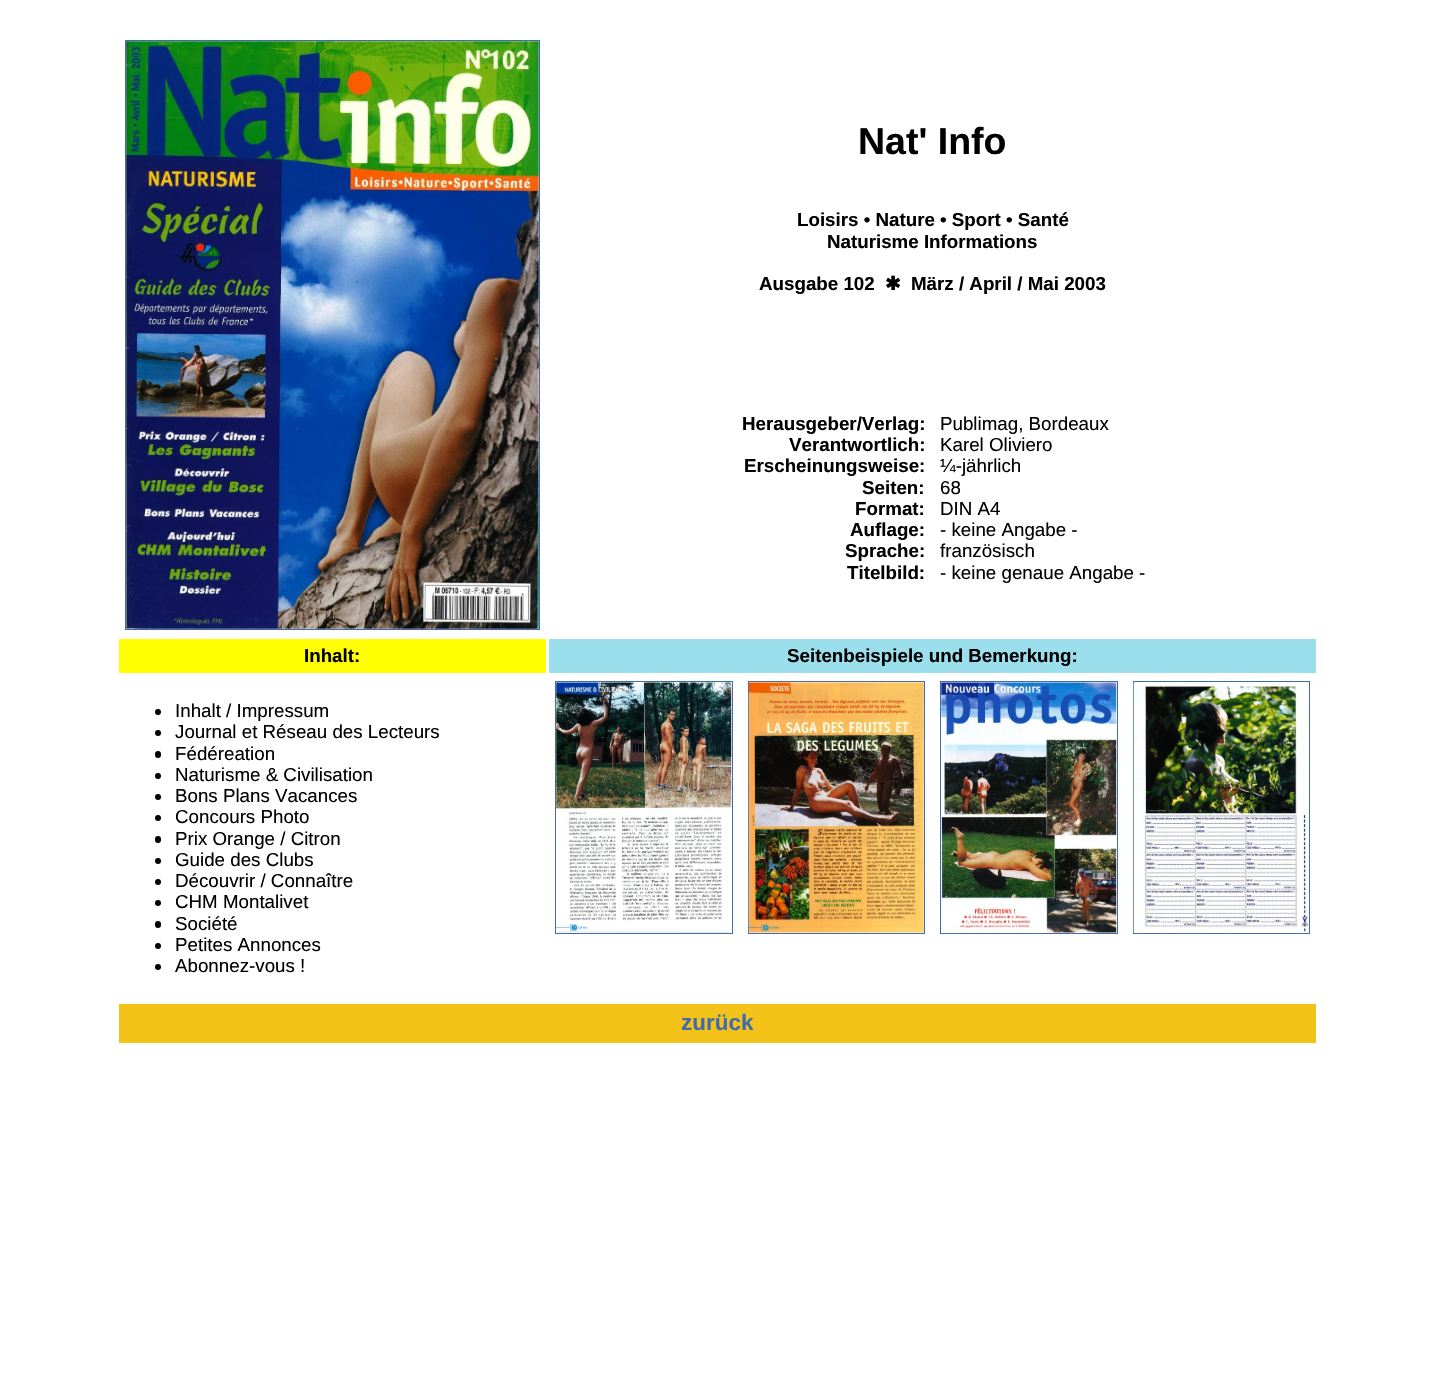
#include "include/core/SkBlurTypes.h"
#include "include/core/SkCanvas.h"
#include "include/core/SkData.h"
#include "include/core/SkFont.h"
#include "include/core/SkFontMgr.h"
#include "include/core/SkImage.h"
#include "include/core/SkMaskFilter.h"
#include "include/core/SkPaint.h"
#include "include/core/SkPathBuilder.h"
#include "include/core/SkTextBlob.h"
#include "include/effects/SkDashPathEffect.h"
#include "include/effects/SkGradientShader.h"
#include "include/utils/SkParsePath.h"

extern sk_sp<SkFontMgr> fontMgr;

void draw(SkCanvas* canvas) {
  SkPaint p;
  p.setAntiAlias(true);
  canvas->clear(SK_ColorWHITE);
  p.setStyle(SkPaint::kStroke_Style);
  p.setStrokeWidth(1);
  p.setColor(SkColorSetRGB(66, 107, 174));
  canvas->drawRect(SkRect::MakeLTRB(125.5f, 40.5f, 539.5f, 629.5f), p);
  canvas->drawImageRect(SkImages::DeferredFromEncodedData(SkData::MakeFromFileName("images/1.png")), SkRect::MakeLTRB(126, 41, 539, 629), SkSamplingOptions());
  p.setStyle(SkPaint::kFill_Style);
  p.setColor(SkColorSetRGB(255, 255, 0));
  canvas->drawRect(SkRect::MakeLTRB(119, 639, 546, 673), p);
  p.setColor(SkColorSetRGB(154, 223, 235));
  canvas->drawRect(SkRect::MakeLTRB(549, 639, 1316, 673), p);
  p.setColor(SK_ColorBLACK);
  canvas->drawCircle(158, 712, 3, p);
  canvas->drawCircle(158, 733, 3, p);
  canvas->drawRoundRect(SkRect::MakeLTRB(155, 751, 161, 758), 3, 3, p);
  canvas->drawCircle(158, 776, 3, p);
  canvas->drawCircle(158, 797, 3, p);
  canvas->drawCircle(158, 818, 3, p);
  canvas->drawRoundRect(SkRect::MakeLTRB(155, 836, 161, 843), 3, 3, p);
  canvas->drawCircle(158, 861, 3, p);
  canvas->drawCircle(158, 882, 3, p);
  canvas->drawCircle(158, 903, 3, p);
  canvas->drawRoundRect(SkRect::MakeLTRB(155, 921, 161, 928), 3, 3, p);
  canvas->drawCircle(158, 946, 3, p);
  canvas->drawCircle(158, 967, 3, p);
  p.setStyle(SkPaint::kStroke_Style);
  p.setColor(SkColorSetRGB(66, 107, 174));
  canvas->drawRect(SkRect::MakeLTRB(555.5f, 681.5f, 732.5f, 933.5f), p);
  canvas->drawImageRect(SkImages::DeferredFromEncodedData(SkData::MakeFromFileName("images/2.png")), SkRect::MakeLTRB(556, 682, 732, 933), SkSamplingOptions());
  canvas->drawRect(SkRect::MakeLTRB(748.5f, 681.5f, 924.5f, 933.5f), p);
  canvas->drawImageRect(SkImages::DeferredFromEncodedData(SkData::MakeFromFileName("images/3.png")), SkRect::MakeLTRB(748, 682, 924, 933), SkSamplingOptions());
  canvas->drawRect(SkRect::MakeLTRB(940.5f, 681.5f, 1117.5f, 933.5f), p);
  canvas->drawImageRect(SkImages::DeferredFromEncodedData(SkData::MakeFromFileName("images/4.png")), SkRect::MakeLTRB(941, 682, 1117, 933), SkSamplingOptions());
  canvas->drawRect(SkRect::MakeLTRB(1133.5f, 681.5f, 1309.5f, 933.5f), p);
  canvas->drawImageRect(SkImages::DeferredFromEncodedData(SkData::MakeFromFileName("images/5.png")), SkRect::MakeLTRB(1133, 682, 1309, 933), SkSamplingOptions());
  p.setStyle(SkPaint::kFill_Style);
  p.setColor(SkColorSetRGB(244, 195, 25));
  canvas->drawRect(SkRect::MakeLTRB(119, 1004, 1316, 1043), p);
  SkFont font1(fontMgr->matchFamilyStyle("Liberation Sans", SkFontStyle::Bold()), 37.5f);
  font1.setSubpixel(true);
  p.setColor(SK_ColorBLACK);
  canvas->drawString("Nat' Info", 858, 154, font1, p);
  SkFont font2(fontMgr->matchFamilyStyle("Liberation Sans", SkFontStyle::Bold()), 18.75f);
  font2.setSubpixel(true);
  canvas->drawString("Loisirs • Nature • Sport • Santé", 797, 226, font2, p);
  canvas->drawString("Naturisme Informations", 827, 248, font2, p);
  canvas->drawString("Ausgabe 102", 759, 290, font2, p);
  SkFont font3(fontMgr->matchFamilyStyle("DejaVu Sans", SkFontStyle::Bold()), 18.75f);
  font3.setSubpixel(true);
  canvas->drawString("✱", 885, 290, font3, p);
  canvas->drawString("März / April / Mai 2003", 911, 290, font2, p);
  canvas->drawString("Herausgeber/Verlag:", 742, 430, font2, p);
  canvas->drawString("Verantwortlich:", 789, 451, font2, p);
  canvas->drawString("Erscheinungsweise:", 744, 472, font2, p);
  canvas->drawString("Seiten:", 862, 494, font2, p);
  canvas->drawString("Format:", 855, 515, font2, p);
  canvas->drawString("Auflage:", 850, 536, font2, p);
  canvas->drawString("Sprache:", 845, 557, font2, p);
  canvas->drawString("Titelbild:", 847, 579, font2, p);
  SkFont font4(fontMgr->matchFamilyStyle("Liberation Sans", SkFontStyle::Normal()), 18.75f);
  font4.setSubpixel(true);
  canvas->drawString("Publimag, Bordeaux", 940, 430, font4, p);
  canvas->drawString("Karel Oliviero", 940, 451, font4, p);
  canvas->drawString("¼-jährlich", 940, 472, font4, p);
  canvas->drawString("68", 940, 494, font4, p);
  canvas->drawString("DIN A4", 940, 515, font4, p);
  canvas->drawString("- keine Angabe -", 940, 536, font4, p);
  canvas->drawString("französisch", 940, 557, font4, p);
  canvas->drawString("- keine genaue Angabe -", 940, 579, font4, p);
  canvas->drawString("Inhalt:", 304, 662, font2, p);
  canvas->drawString("Seitenbeispiele und Bemerkung:", 787, 662, font2, p);
  canvas->drawString("Inhalt / Impressum", 175, 717, font4, p);
  canvas->drawString("Journal et Réseau des Lecteurs", 175, 738, font4, p);
  canvas->drawString("Fédéreation", 175, 760, font4, p);
  canvas->drawString("Naturisme & Civilisation", 175, 781, font4, p);
  canvas->drawString("Bons Plans Vacances", 175, 802, font4, p);
  canvas->drawString("Concours Photo", 175, 823, font4, p);
  canvas->drawString("Prix Orange / Citron", 175, 845, font4, p);
  canvas->drawString("Guide des Clubs", 175, 866, font4, p);
  canvas->drawString("Découvrir / Connaître", 175, 887, font4, p);
  canvas->drawString("CHM Montalivet", 175, 908, font4, p);
  canvas->drawString("Société", 175, 930, font4, p);
  canvas->drawString("Petites Annonces", 175, 951, font4, p);
  canvas->drawString("Abonnez-vous !", 175, 972, font4, p);
  SkFont font5(fontMgr->matchFamilyStyle("Liberation Sans", SkFontStyle::Bold()), 22.5f);
  font5.setSubpixel(true);
  p.setColor(SkColorSetRGB(66, 107, 174));
  canvas->drawString("zurück", 681, 1030, font5, p);
}
